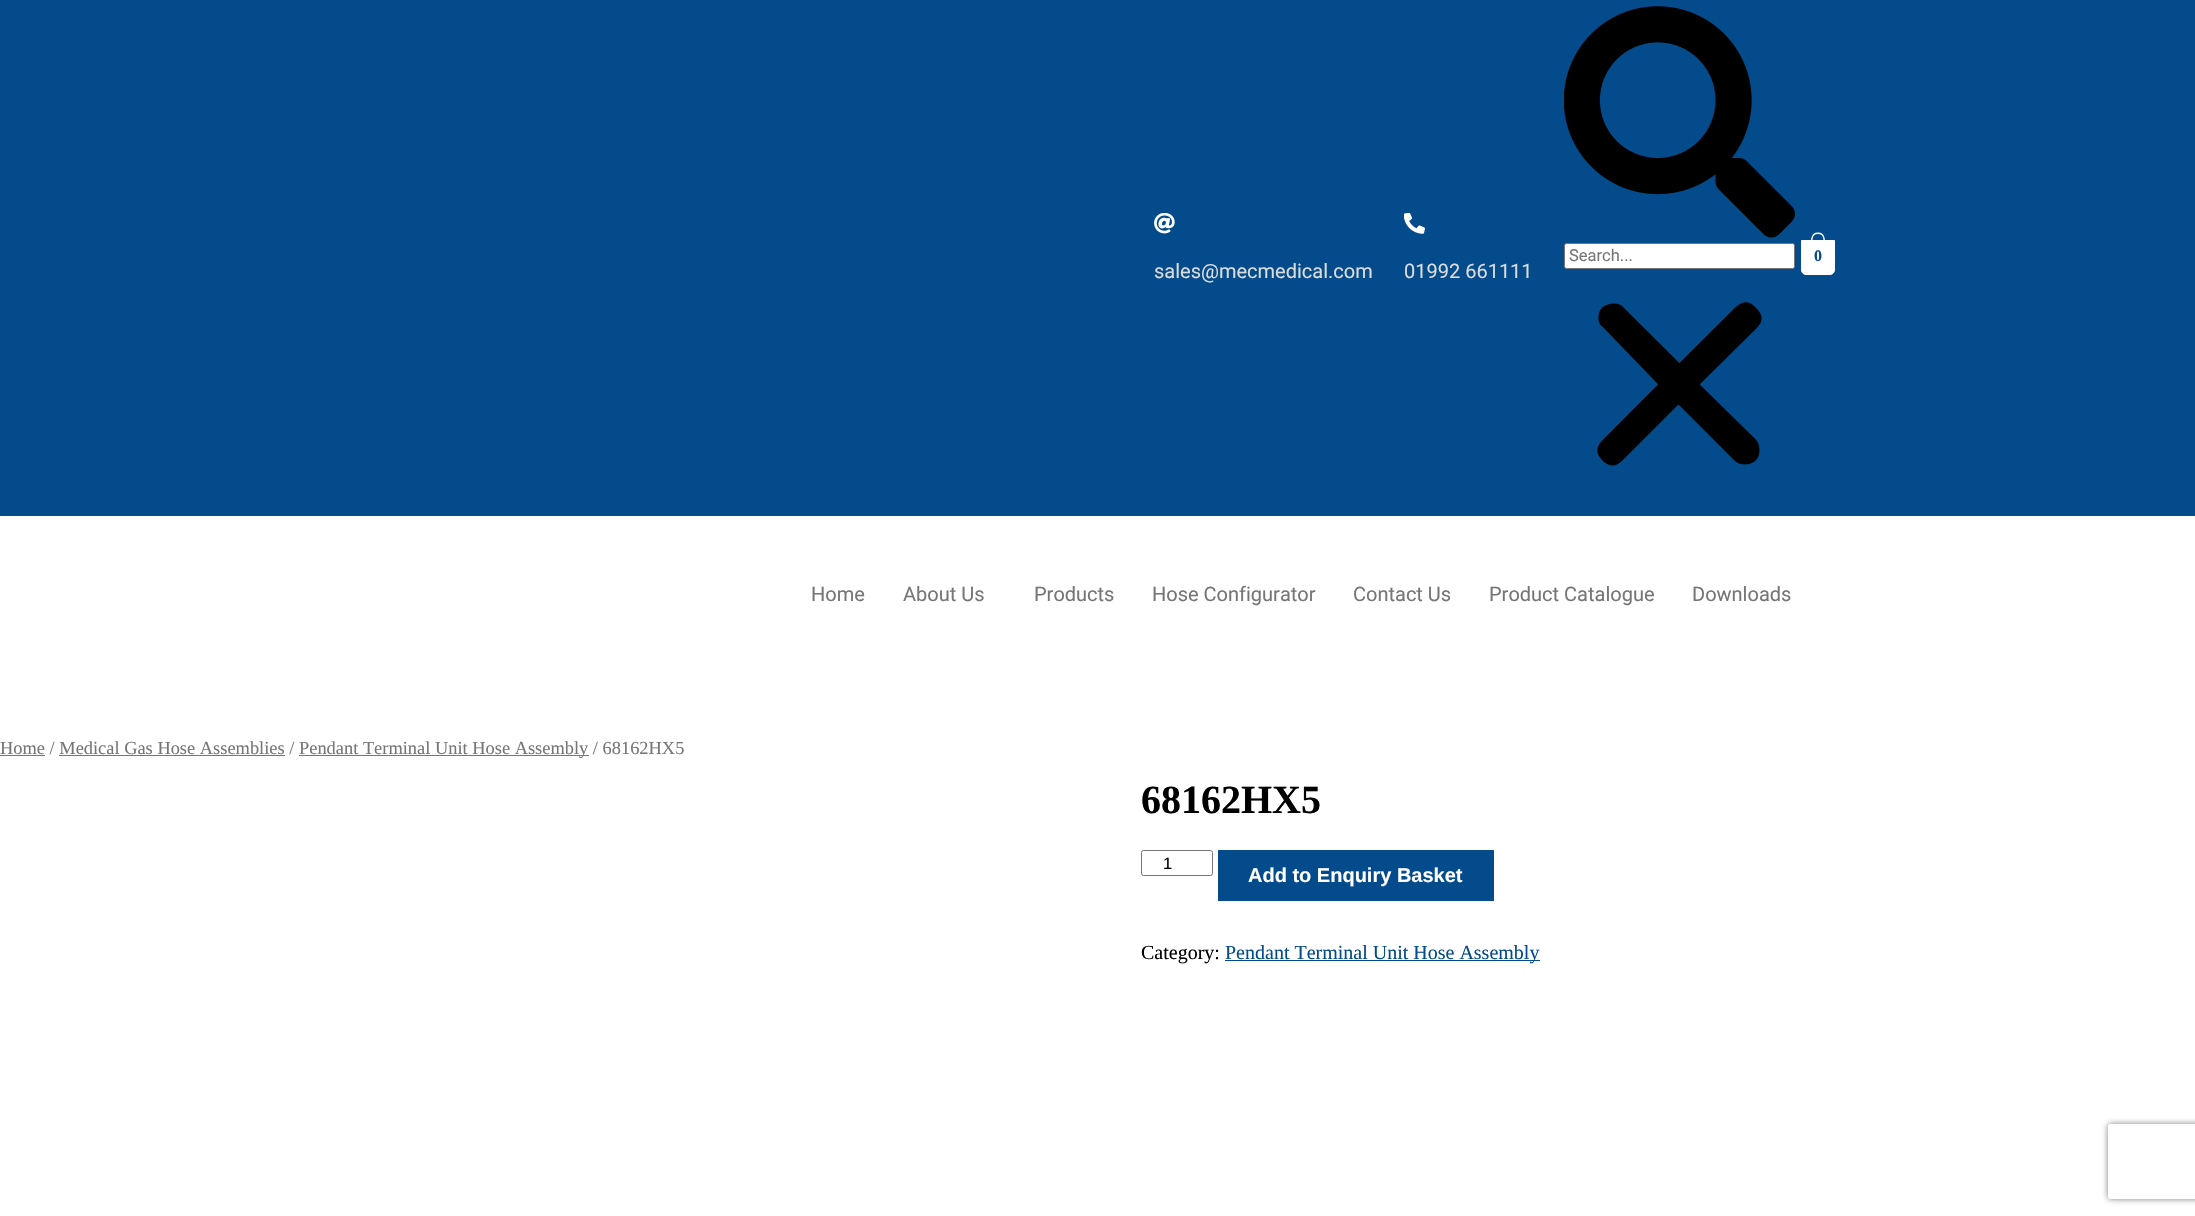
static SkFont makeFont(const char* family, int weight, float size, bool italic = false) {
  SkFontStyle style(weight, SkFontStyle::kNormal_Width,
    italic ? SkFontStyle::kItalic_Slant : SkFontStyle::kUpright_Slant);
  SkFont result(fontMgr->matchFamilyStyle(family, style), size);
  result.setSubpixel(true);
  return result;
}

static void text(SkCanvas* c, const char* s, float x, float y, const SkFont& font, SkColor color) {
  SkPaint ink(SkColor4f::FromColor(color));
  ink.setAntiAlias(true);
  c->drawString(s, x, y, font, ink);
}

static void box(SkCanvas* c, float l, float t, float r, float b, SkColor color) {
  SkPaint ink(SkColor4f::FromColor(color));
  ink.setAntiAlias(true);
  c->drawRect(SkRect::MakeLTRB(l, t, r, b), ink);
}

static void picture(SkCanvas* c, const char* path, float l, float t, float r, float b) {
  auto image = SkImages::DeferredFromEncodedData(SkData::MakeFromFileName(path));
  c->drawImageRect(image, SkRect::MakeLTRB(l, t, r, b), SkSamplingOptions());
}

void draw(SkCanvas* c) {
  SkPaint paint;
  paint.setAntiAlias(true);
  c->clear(0xffffffff);
  box(c, 0, 0, 2195, 516, 0xff044b8b);
  picture(c, "img_01.png", 1564, 6, 1795, 238);
  paint.setColor(0xffffffff);
  c->drawRoundRect(SkRect::MakeLTRB(1564.5f, 243.5f, 1794.5f, 268.5f), 2, 2, paint);
  paint.setStyle(SkPaint::kStroke_Style);
  paint.setStrokeWidth(1);
  paint.setColor(0xff767676);
  c->drawRoundRect(SkRect::MakeLTRB(1564.5f, 243.5f, 1794.5f, 268.5f), 2, 2, paint);
  SkFont face1 = makeFont("Roboto", 400, 16.5f);
  text(c, "Search...", 1569, 261, face1, 0xff767676);
  picture(c, "img_02.png", 1597, 302, 1762, 466);
  paint.setStyle(SkPaint::kFill_Style);
  paint.setColor(0xffffffff);
  c->drawPath(SkPathBuilder().moveTo(1801.5f, 240.5f).lineTo(1834.5f, 240.5f).lineTo(1834.5f, 270).cubicTo(1834.5f, 272.5f, 1832.5f, 274.5f, 1830, 274.5f).lineTo(1806, 274.5f).cubicTo(1803.5f, 274.5f, 1801.5f, 272.5f, 1801.5f, 270).close().detach(), paint);
  paint.setStyle(SkPaint::kStroke_Style);
  c->drawPath(SkPathBuilder().moveTo(1801.5f, 240.5f).lineTo(1834.5f, 240.5f).lineTo(1834.5f, 270).cubicTo(1834.5f, 272.5f, 1832.5f, 274.5f, 1830, 274.5f).lineTo(1806, 274.5f).cubicTo(1803.5f, 274.5f, 1801.5f, 272.5f, 1801.5f, 270).close().detach(), paint);
  paint.setStyle(SkPaint::kFill_Style);
  c->drawPath(SkPathBuilder(SkPathFillType::kEvenOdd).moveTo(1818, 232.5f).cubicTo(1825.5f, 232.5f, 1825, 240, 1825, 245).lineTo(1811, 245).cubicTo(1811, 240, 1810.5f, 232.5f, 1818, 232.5f).close().moveTo(1818, 234).cubicTo(1824.5f, 234, 1823.5f, 240.5f, 1823.5f, 245).lineTo(1812.5f, 245).cubicTo(1812.5f, 240.5f, 1811.5f, 234, 1818, 234).close().detach(), paint);
  SkFont face2 = makeFont("Liberation Serif", 700, 16);
  text(c, "0", 1814, 261, face2, 0xff044b8b);
  picture(c, "img_03.png", 1154, 213, 1175, 234);
  SkFont face3 = makeFont("Roboto", 400, 20);
  text(c, "sales@mecmedical.com", 1154, 278, face3, 0xffdcdcdc);
  picture(c, "img_04.png", 1404, 213, 1425, 234);
  text(c, "01992 661111", 1404, 278, face3, 0xffdcdcdc);
  text(c, "Home", 811, 601, face3, 0xff767676);
  text(c, "About Us", 903, 601, face3, 0xff767676);
  text(c, "Products", 1034, 601, face3, 0xff767676);
  text(c, "Hose Configurator", 1152, 601, face3, 0xff767676);
  text(c, "Contact Us", 1353, 601, face3, 0xff767676);
  text(c, "Product Catalogue", 1489, 601, face3, 0xff767676);
  text(c, "Downloads", 1692, 601, face3, 0xff767676);
  SkFont face4 = makeFont("Liberation Serif", 400, 18.4f);
  text(c, "Home / Medical Gas Hose Assemblies /", 0, 754, face4, 0xff767676);
  box(c, 0, 755, 45, 756, 0xff767676);
  box(c, 299, 755, 589, 756, 0xff767676);
  text(c, "Pendant Terminal Unit Hose Assembly / 68162HX5", 299, 754, face4, 0xff767676);
  box(c, 59, 755, 285, 756, 0xff767676);
  SkFont face5 = makeFont("Liberation Serif", 700, 40);
  text(c, "68162HX5", 1141, 813, face5, 0xff000000);
  paint.setStyle(SkPaint::kStroke_Style);
  paint.setColor(0xff767676);
  c->drawRoundRect(SkRect::MakeLTRB(1141.5f, 850.5f, 1212.5f, 875.5f), 2, 2, paint);
  SkFont face6 = makeFont("Liberation Sans", 400, 16.5f);
  text(c, "1", 1163, 869, face6, 0xff000000);
  box(c, 1218, 850, 1494, 901, 0xff044b8b);
  SkFont face7 = makeFont("Liberation Sans", 700, 20);
  text(c, "Add to Enquiry Basket", 1248, 882, face7, 0xffffffff);
  SkFont face8 = makeFont("Liberation Serif", 400, 20);
  text(c, "Category:", 1141, 959, face8, 0xff000000);
  box(c, 1225, 960, 1540, 961, 0xff044b8b);
  text(c, "Pendant Terminal Unit Hose Assembly", 1225, 959, face8, 0xff044b8b);
  c->save();
  c->clipPath(SkPathBuilder(SkPathFillType::kEvenOdd).moveTo(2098, 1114).lineTo(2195, 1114).lineTo(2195, 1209).lineTo(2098, 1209).close().moveTo(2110.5f, 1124).lineTo(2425.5f, 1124).cubicTo(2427, 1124, 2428, 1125, 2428, 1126.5f).lineTo(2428, 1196.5f).cubicTo(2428, 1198, 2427, 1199, 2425.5f, 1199).lineTo(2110.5f, 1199).cubicTo(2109, 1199, 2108, 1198, 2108, 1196.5f).lineTo(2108, 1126.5f).cubicTo(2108, 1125, 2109, 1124, 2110.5f, 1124).close().detach(), true);
  paint.setStyle(SkPaint::kFill_Style);
  paint.setColor(0xff808080);
  paint.setMaskFilter(SkMaskFilter::MakeBlur(kNormal_SkBlurStyle, 3));
  c->drawRoundRect(SkRect::MakeLTRB(2108, 1124, 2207, 1199), 2.5f, 2.5f, paint);
  paint.setMaskFilter(nullptr);
  c->restore();
}
